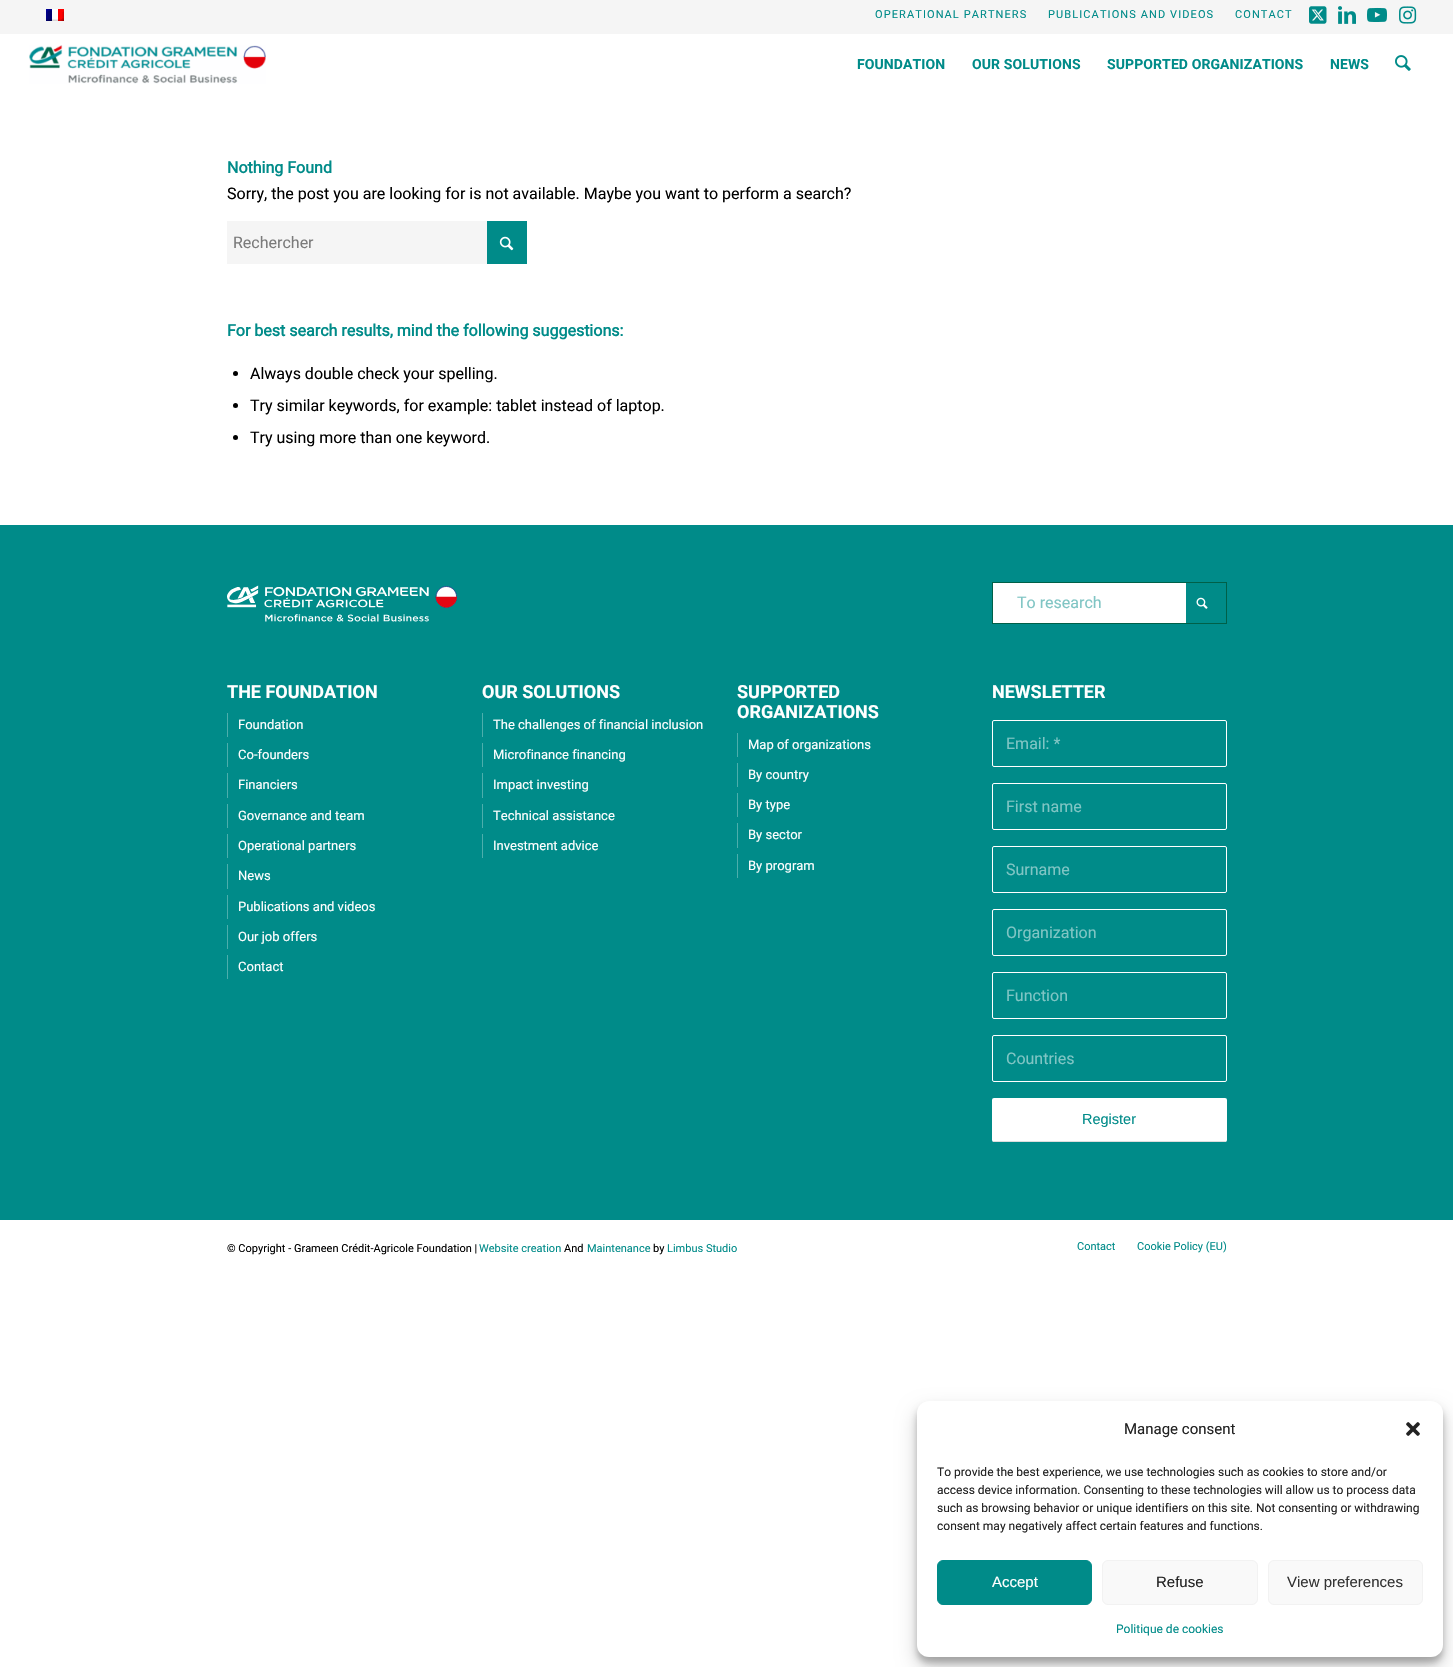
static SkFont makeFont(const char* family, int weight, float size, bool italic = false) {
  SkFontStyle style(weight, SkFontStyle::kNormal_Width,
    italic ? SkFontStyle::kItalic_Slant : SkFontStyle::kUpright_Slant);
  SkFont result(fontMgr->matchFamilyStyle(family, style), size);
  result.setSubpixel(true);
  return result;
}

static void text(SkCanvas* c, const char* s, float x, float y, const SkFont& font, SkColor color) {
  SkPaint ink(SkColor4f::FromColor(color));
  ink.setAntiAlias(true);
  c->drawString(s, x, y, font, ink);
}

static void spacedText(SkCanvas* c, const char* s, float x, float y, const SkFont& font, const SkPaint& ink, float letter, float word) {
  std::vector<SkGlyphID> glyphs(font.countText(s, strlen(s), SkTextEncoding::kUTF8));
  std::vector<float> xs(glyphs.size());
  font.textToGlyphs(s, strlen(s), SkTextEncoding::kUTF8, glyphs);
  font.getXPos(glyphs, xs, x);
  float extra = 0;
  for (size_t i = 0; i < glyphs.size(); i++) {
    xs[i] += extra;
    extra += letter + word * (glyphs[i] == font.unicharToGlyph(' '));
  }
  c->drawTextBlob(SkTextBlob::MakeFromPosHGlyphs(glyphs, xs, y, font), 0, 0, ink);
}

static void box(SkCanvas* c, float l, float t, float r, float b, SkColor color) {
  SkPaint ink(SkColor4f::FromColor(color));
  ink.setAntiAlias(true);
  c->drawRect(SkRect::MakeLTRB(l, t, r, b), ink);
}

static void roundBox(SkCanvas* c, float l, float t, float r, float b, float radius, SkColor color) {
  SkPaint ink(SkColor4f::FromColor(color));
  ink.setAntiAlias(true);
  c->drawRoundRect(SkRect::MakeLTRB(l, t, r, b), radius, radius, ink);
}

static void picture(SkCanvas* c, const char* path, float l, float t, float r, float b) {
  auto image = SkImages::DeferredFromEncodedData(SkData::MakeFromFileName(path));
  c->drawImageRect(image, SkRect::MakeLTRB(l, t, r, b), SkSamplingOptions());
}

void draw(SkCanvas* c) {
  SkPaint paint;
  paint.setAntiAlias(true);
  c->clear(0xffffffff);
  box(c, 0, 0, 1453, 34, 0xfff5f5f5);
  picture(c, "img_01.png", 46, 9, 64, 21);
  SkFont face1 = makeFont("Roboto", 400, 11);
  paint.setColor(0xff008b89);
  spacedText(c, "OPERATIONAL PARTNERS", 875, 18, face1, paint, 1.1f, 0);
  spacedText(c, "PUBLICATIONS AND VIDEOS", 1048, 18, face1, paint, 1.1f, 0);
  spacedText(c, "CONTACT", 1235, 18, face1, paint, 1.1f, 0);
  picture(c, "img_02.png", 1309, 6, 1327, 24);
  picture(c, "img_03.png", 1338, 6, 1356, 24);
  picture(c, "img_04.png", 1367, 7, 1387, 22);
  picture(c, "img_05.png", 1399, 6, 1417, 24);
  picture(c, "img_06.png", 29, 45, 266, 84);
  SkFont face2 = makeFont("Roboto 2", 700, 14);
  spacedText(c, "FOUNDATION", 857, 69, face2, paint, 0.1f, 0);
  spacedText(c, "OUR SOLUTIONS", 972, 69, face2, paint, 0.1f, 0);
  spacedText(c, "SUPPORTED ORGANIZATIONS", 1107, 69, face2, paint, 0.1f, 0);
  spacedText(c, "NEWS", 1330, 69, face2, paint, 0.1f, 0);
  picture(c, "img_07.png", 1395, 55, 1411, 71);
  SkFont face3 = makeFont("Roboto", 700, 16);
  text(c, "Nothing Found", 227, 173, face3, 0xff008b89);
  SkFont face4 = makeFont("Roboto", 400, 16);
  text(c, "Sorry, the post you are looking for is not available. Maybe you want to perform a search?", 227, 199, face4, 0xff000000);
  box(c, 227, 221, 487, 264, 0xfff5f5f5);
  text(c, "Rechercher", 233, 248, face4, 0xff7b7b7b);
  box(c, 487, 221, 527, 264, 0xff008b89);
  picture(c, "img_08.png", 499, 236, 514, 251);
  text(c, "For best search results, mind the following suggestions:", 227, 336, face3, 0xff008b89);
  paint.setColor(0xff000000);
  c->drawCircle(235.5f, 373.5f, 2.5f, paint);
  text(c, "Always double check your spelling.", 250, 379, face4, 0xff000000);
  c->drawCircle(235.5f, 405.5f, 2.5f, paint);
  text(c, "Try similar keywords, for example: tablet instead of laptop.", 250, 411, face4, 0xff000000);
  c->drawCircle(235.5f, 437.5f, 2.5f, paint);
  text(c, "Try using more than one keyword.", 250, 443, face4, 0xff000000);
  box(c, 0, 525, 1453, 1220, 0xff008b89);
  picture(c, "img_09.png", 227, 585, 457, 622);
  box(c, 992, 582, 1227, 624, 0xff006048);
  box(c, 993, 583, 1186, 623, 0xffffffff);
  text(c, "To research", 1017, 608, face4, 0xff80c5c4);
  box(c, 1186, 583, 1226, 623, 0xff008b88);
  picture(c, "img_10.png", 1196, 597, 1208, 609);
  SkFont face5 = makeFont("Roboto 2", 700, 18);
  text(c, "THE FOUNDATION", 227, 698, face5, 0xffffffff);
  box(c, 227, 713, 228, 737, 0xff4daeac);
  SkFont face6 = makeFont("Roboto", 400, 13);
  text(c, "Foundation", 238, 729, face6, 0xffffffff);
  box(c, 227, 743, 228, 767, 0xff4daeac);
  text(c, "Co-founders", 238, 759, face6, 0xffffffff);
  box(c, 227, 773, 228, 798, 0xff4daeac);
  text(c, "Financiers", 238, 789, face6, 0xffffffff);
  box(c, 227, 804, 228, 828, 0xff4daeac);
  text(c, "Governance and team", 238, 820, face6, 0xffffffff);
  box(c, 227, 834, 228, 858, 0xff4daeac);
  text(c, "Operational partners", 238, 850, face6, 0xffffffff);
  box(c, 227, 864, 228, 889, 0xff4daeac);
  text(c, "News", 238, 880, face6, 0xffffffff);
  box(c, 227, 895, 228, 919, 0xff4daeac);
  text(c, "Publications and videos", 238, 911, face6, 0xffffffff);
  box(c, 227, 925, 228, 949, 0xff4daeac);
  text(c, "Our job offers", 238, 941, face6, 0xffffffff);
  box(c, 227, 955, 228, 979, 0xff4daeac);
  text(c, "Contact", 238, 971, face6, 0xffffffff);
  text(c, "OUR SOLUTIONS", 482, 698, face5, 0xffffffff);
  box(c, 482, 713, 483, 737, 0xff4daeac);
  text(c, "The challenges of financial inclusion", 493, 729, face6, 0xffffffff);
  box(c, 482, 743, 483, 767, 0xff4daeac);
  text(c, "Microfinance financing", 493, 759, face6, 0xffffffff);
  box(c, 482, 773, 483, 798, 0xff4daeac);
  text(c, "Impact investing", 493, 789, face6, 0xffffffff);
  box(c, 482, 804, 483, 828, 0xff4daeac);
  text(c, "Technical assistance", 493, 820, face6, 0xffffffff);
  box(c, 482, 834, 483, 858, 0xff4daeac);
  text(c, "Investment advice", 493, 850, face6, 0xffffffff);
  text(c, "SUPPORTED", 737, 698, face5, 0xffffffff);
  text(c, "ORGANIZATIONS", 737, 718, face5, 0xffffffff);
  box(c, 737, 733, 738, 757, 0xff4daeac);
  text(c, "Map of organizations", 748, 749, face6, 0xffffffff);
  box(c, 737, 763, 738, 787, 0xff4daeac);
  text(c, "By country", 748, 779, face6, 0xffffffff);
  box(c, 737, 793, 738, 817, 0xff4daeac);
  text(c, "By type", 748, 809, face6, 0xffffffff);
  box(c, 737, 823, 738, 848, 0xff4daeac);
  text(c, "By sector", 748, 839, face6, 0xffffffff);
  box(c, 737, 854, 738, 878, 0xff4daeac);
  text(c, "By program", 748, 870, face6, 0xffffffff);
  text(c, "NEWSLETTER", 992, 698, face5, 0xffffffff);
  paint.setStyle(SkPaint::kStroke_Style);
  paint.setStrokeWidth(1);
  paint.setColor(0xffffffff);
  c->drawRoundRect(SkRect::MakeLTRB(992.5f, 720.5f, 1226.5f, 766.5f), 1.5f, 1.5f, paint);
  text(c, "Email: *", 1006, 749, face4, 0xff80c5c4);
  c->drawRoundRect(SkRect::MakeLTRB(992.5f, 783.5f, 1226.5f, 829.5f), 1.5f, 1.5f, paint);
  text(c, "First name", 1006, 812, face4, 0xff80c5c4);
  c->drawRoundRect(SkRect::MakeLTRB(992.5f, 846.5f, 1226.5f, 892.5f), 1.5f, 1.5f, paint);
  text(c, "Surname", 1006, 875, face4, 0xff80c5c4);
  c->drawRoundRect(SkRect::MakeLTRB(992.5f, 909.5f, 1226.5f, 955.5f), 1.5f, 1.5f, paint);
  text(c, "Organization", 1006, 938, face4, 0xff80c5c4);
  c->drawRoundRect(SkRect::MakeLTRB(992.5f, 972.5f, 1226.5f, 1018.5f), 1.5f, 1.5f, paint);
  text(c, "Function", 1006, 1001, face4, 0xff80c5c4);
  c->drawRoundRect(SkRect::MakeLTRB(992.5f, 1035.5f, 1226.5f, 1081.5f), 1.5f, 1.5f, paint);
  text(c, "Countries", 1006, 1064, face4, 0xff80c5c4);
  roundBox(c, 992, 1098, 1227, 1142, 2, 0xffffffff);
  box(c, 993, 1141, 1226, 1142, 0xffdddddd);
  SkFont face7 = makeFont("Liberation Sans", 400, 14.5f);
  text(c, "Register", 1082, 1124, face7, 0xff008b89);
  text(c, "© Copyright - Grameen Crédit-Agricole Foundation |", 227, 1252, face1, 0xff000000);
  text(c, "Website creation", 479, 1252, face1, 0xff008b89);
  text(c, "And", 564, 1252, face1, 0xff000000);
  text(c, "Maintenance", 587, 1252, face1, 0xff008b89);
  text(c, "by", 653, 1252, face1, 0xff000000);
  text(c, "Limbus Studio", 667, 1252, face1, 0xff008b89);
  text(c, "Contact", 1077, 1250, face1, 0xff008b89);
  text(c, "Cookie Policy (EU)", 1137, 1250, face1, 0xff008b89);
  paint.setStyle(SkPaint::kFill_Style);
  paint.setColor(0x3b000000);
  paint.setMaskFilter(SkMaskFilter::MakeBlur(kNormal_SkBlurStyle, 3));
  c->drawRoundRect(SkRect::MakeLTRB(917, 1407, 1443, 1663), 12, 12, paint);
  paint.setMaskFilter(nullptr);
  paint.setColor(0x30000000);
  paint.setMaskFilter(SkMaskFilter::MakeBlur(kNormal_SkBlurStyle, 10));
  c->drawRoundRect(SkRect::MakeLTRB(917, 1411, 1443, 1667), 12, 12, paint);
  paint.setMaskFilter(nullptr);
  roundBox(c, 917, 1401, 1443, 1657, 12, 0xffffffff);
  SkFont face8 = makeFont("Roboto", 400, 15);
  text(c, "Manage consent", 1124, 1434, face8, 0xff222222);
  picture(c, "img_11.png", 1406, 1422, 1420, 1436);
  SkFont face9 = makeFont("Roboto", 400, 12);
  text(c, "To provide the best experience, we use technologies such as cookies to store and/or", 937, 1476, face9, 0xff222222);
  text(c, "access device information. Consenting to these technologies will allow us to process data", 937, 1494, face9, 0xff222222);
  text(c, "such as browsing behavior or unique identifiers on this site. Not consenting or withdrawing", 937, 1512, face9, 0xff222222);
  text(c, "consent may negatively affect certain features and functions.", 937, 1530, face9, 0xff222222);
  paint.setColor(0xff008b89);
  c->drawRoundRect(SkRect::MakeLTRB(937.5f, 1560.5f, 1091.5f, 1604.5f), 5.5f, 5.5f, paint);
  paint.setStyle(SkPaint::kStroke_Style);
  c->drawRoundRect(SkRect::MakeLTRB(937.5f, 1560.5f, 1091.5f, 1604.5f), 5.5f, 5.5f, paint);
  SkFont face10 = makeFont("Liberation Sans", 400, 15);
  text(c, "Accept", 992, 1587, face10, 0xffffffff);
  paint.setStyle(SkPaint::kFill_Style);
  paint.setColor(0xfff9f9f9);
  c->drawRoundRect(SkRect::MakeLTRB(1102.5f, 1560.5f, 1257.5f, 1604.5f), 5.5f, 5.5f, paint);
  paint.setStyle(SkPaint::kStroke_Style);
  paint.setColor(0xfff2f2f2);
  c->drawRoundRect(SkRect::MakeLTRB(1102.5f, 1560.5f, 1257.5f, 1604.5f), 5.5f, 5.5f, paint);
  text(c, "Refuse", 1156, 1587, face10, 0xff222222);
  paint.setStyle(SkPaint::kFill_Style);
  paint.setColor(0xfff9f9f9);
  c->drawRoundRect(SkRect::MakeLTRB(1268.5f, 1560.5f, 1422.5f, 1604.5f), 5.5f, 5.5f, paint);
  paint.setStyle(SkPaint::kStroke_Style);
  paint.setColor(0xfff2f2f2);
  c->drawRoundRect(SkRect::MakeLTRB(1268.5f, 1560.5f, 1422.5f, 1604.5f), 5.5f, 5.5f, paint);
  text(c, "View preferences", 1287, 1587, face10, 0xff333333);
  text(c, "Politique de cookies", 1116, 1633, face9, 0xff008b89);
}
